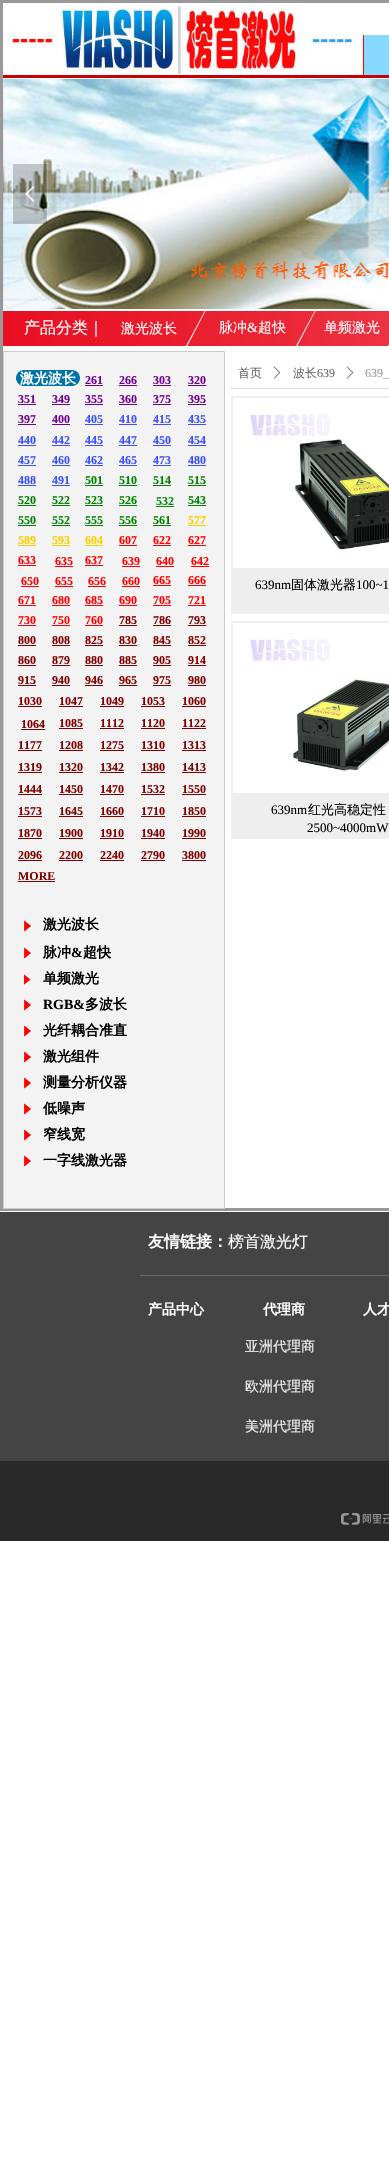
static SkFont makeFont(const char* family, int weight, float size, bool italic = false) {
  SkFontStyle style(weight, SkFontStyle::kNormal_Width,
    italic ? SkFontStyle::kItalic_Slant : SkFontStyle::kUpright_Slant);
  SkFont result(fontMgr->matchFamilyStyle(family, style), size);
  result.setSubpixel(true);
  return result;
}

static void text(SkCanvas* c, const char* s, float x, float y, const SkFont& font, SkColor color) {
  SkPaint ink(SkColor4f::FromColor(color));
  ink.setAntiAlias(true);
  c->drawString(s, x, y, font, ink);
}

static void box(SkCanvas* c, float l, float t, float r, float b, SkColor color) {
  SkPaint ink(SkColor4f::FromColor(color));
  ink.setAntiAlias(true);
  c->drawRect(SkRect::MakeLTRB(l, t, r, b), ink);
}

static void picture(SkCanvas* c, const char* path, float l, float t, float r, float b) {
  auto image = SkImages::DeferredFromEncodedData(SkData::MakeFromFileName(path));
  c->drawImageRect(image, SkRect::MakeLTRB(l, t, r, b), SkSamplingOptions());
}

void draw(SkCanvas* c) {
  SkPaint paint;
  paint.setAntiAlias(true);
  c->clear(0xffffffff);
  box(c, 0, 0, 389, 3, 0xff999999);
  box(c, 0, 0, 3, 311, 0xff999999);
  picture(c, "img_01.png", 7, 6, 356, 74);
  box(c, 363, 35, 364, 75, 0xffff0000);
  box(c, 364, 35, 389, 75, 0xff87d9ff);
  box(c, 3, 75, 389, 78, 0xffcc0000);
  picture(c, "img_02.png", 3, 79, 389, 309);
  box(c, 13, 164, 47, 224, 0x33000000);
  picture(c, "img_03.png", 25, 186, 35, 202);
  box(c, 0, 1208, 389, 1211, 0xff999999);
  box(c, 0, 311, 3, 1211, 0xff999999);
  picture(c, "img_04.png", 3, 311, 389, 346);
  SkFont face1 = makeFont("WenQuanYi Zen Hei", 500, 16);
  text(c, "产品分类｜", 24, 333, face1, 0xffffffff);
  SkFont face2 = makeFont("WenQuanYi Zen Hei", 500, 14);
  text(c, "激光波长", 121, 333, face2, 0xffffffff);
  paint.setColor(0xffffffff);
  c->drawPath(SkPathBuilder().moveTo(186, 346).lineTo(205, 310.5f).lineTo(205.5f, 311).lineTo(187, 346.5f).close().detach(), paint);
  text(c, "脉冲", 219, 332, face2, 0xffffffff);
  SkFont face3 = makeFont("Liberation Serif", 400, 14);
  text(c, "&", 247, 332, face3, 0xffffffff);
  text(c, "超快", 258, 332, face2, 0xffffffff);
  c->drawPath(SkPathBuilder().moveTo(296, 346).lineTo(315, 310.5f).lineTo(315.5f, 311).lineTo(297, 346.5f).close().detach(), paint);
  text(c, "单频激光", 324, 332, face2, 0xffffffff);
  c->drawPath(SkPathBuilder().moveTo(388, 346).lineTo(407, 310.5f).lineTo(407.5f, 311).lineTo(389, 346.5f).close().detach(), paint);
  paint.setColor(0xfff3f3f3);
  c->drawRect(SkRect::MakeLTRB(3.5f, 351.5f, 224.5f, 1208.5f), paint);
  paint.setStyle(SkPaint::kStroke_Style);
  paint.setStrokeWidth(1);
  paint.setColor(0xffcccccc);
  c->drawRect(SkRect::MakeLTRB(3.5f, 351.5f, 224.5f, 1208.5f), paint);
  picture(c, "img_05.png", 16, 370, 80, 386);
  SkFont face4 = makeFont("WenQuanYi Zen Hei", 700, 14);
  text(c, "激光波长", 20, 383, face4, 0xffffffff);
  SkFont face5 = makeFont("Liberation Serif", 700, 12);
  text(c, "261", 85, 384, face5, 0xff6f0093);
  box(c, 85, 385, 103, 386, 0xff6f0093);
  text(c, "266", 119, 384, face5, 0xff6f0093);
  box(c, 119, 385, 137, 386, 0xff6f0093);
  text(c, "303", 153, 384, face5, 0xff6f0093);
  box(c, 153, 385, 171, 386, 0xff6f0093);
  text(c, "320", 188, 384, face5, 0xff6f0093);
  box(c, 188, 385, 206, 386, 0xff6f0093);
  text(c, "351", 18, 403, face5, 0xff6f0093);
  box(c, 18, 404, 36, 405, 0xff6f0093);
  text(c, "349", 52, 403, face5, 0xff6f0093);
  box(c, 52, 404, 70, 405, 0xff6f0093);
  text(c, "355", 85, 403, face5, 0xff6f0093);
  box(c, 85, 404, 103, 405, 0xff6f0093);
  text(c, "360", 119, 403, face5, 0xff6f0093);
  box(c, 119, 404, 137, 405, 0xff6f0093);
  text(c, "375", 153, 403, face5, 0xff6f0093);
  box(c, 153, 404, 171, 405, 0xff6f0093);
  text(c, "395", 188, 403, face5, 0xff6f0093);
  box(c, 188, 404, 206, 405, 0xff6f0093);
  text(c, "397", 18, 423, face5, 0xff6f0093);
  box(c, 18, 424, 36, 425, 0xff6f0093);
  text(c, "400", 52, 423, face5, 0xff6f0093);
  box(c, 52, 424, 70, 425, 0xff6f0093);
  text(c, "405", 85, 423, face5, 0xff3950fa);
  box(c, 85, 424, 103, 425, 0xff3950fa);
  text(c, "410", 119, 423, face5, 0xff3950fa);
  box(c, 119, 424, 137, 425, 0xff3950fa);
  text(c, "415", 153, 423, face5, 0xff3950fa);
  box(c, 153, 424, 171, 425, 0xff3950fa);
  text(c, "435", 188, 423, face5, 0xff3950fa);
  box(c, 188, 424, 206, 425, 0xff3950fa);
  text(c, "440", 18, 444, face5, 0xff3950fa);
  box(c, 18, 445, 36, 446, 0xff3950fa);
  text(c, "442", 52, 444, face5, 0xff3950fa);
  box(c, 52, 445, 70, 446, 0xff3950fa);
  text(c, "445", 85, 444, face5, 0xff3950fa);
  box(c, 85, 445, 103, 446, 0xff3950fa);
  text(c, "447", 119, 444, face5, 0xff3950fa);
  box(c, 119, 445, 137, 446, 0xff3950fa);
  text(c, "450", 153, 444, face5, 0xff3950fa);
  box(c, 153, 445, 171, 446, 0xff3950fa);
  text(c, "454", 188, 444, face5, 0xff3950fa);
  box(c, 188, 445, 206, 446, 0xff3950fa);
  text(c, "457", 18, 464, face5, 0xff3950fa);
  box(c, 18, 465, 36, 466, 0xff3950fa);
  text(c, "460", 52, 464, face5, 0xff3950fa);
  box(c, 52, 465, 70, 466, 0xff3950fa);
  text(c, "462", 85, 464, face5, 0xff3950fa);
  box(c, 85, 465, 103, 466, 0xff3950fa);
  text(c, "465", 119, 464, face5, 0xff3950fa);
  box(c, 119, 465, 137, 466, 0xff3950fa);
  text(c, "473", 153, 464, face5, 0xff3950fa);
  box(c, 153, 465, 171, 466, 0xff3950fa);
  text(c, "480", 188, 464, face5, 0xff3950fa);
  box(c, 188, 465, 206, 466, 0xff3950fa);
  text(c, "488", 18, 484, face5, 0xff3950fa);
  box(c, 18, 485, 36, 486, 0xff3950fa);
  text(c, "491", 52, 484, face5, 0xff3950fa);
  box(c, 52, 485, 70, 486, 0xff3950fa);
  text(c, "501", 85, 484, face5, 0xff008000);
  box(c, 85, 485, 103, 486, 0xff008000);
  text(c, "510", 119, 484, face5, 0xff008000);
  box(c, 119, 485, 137, 486, 0xff008000);
  text(c, "514", 153, 484, face5, 0xff008000);
  box(c, 153, 485, 171, 486, 0xff008000);
  text(c, "515", 188, 484, face5, 0xff008000);
  box(c, 188, 485, 206, 486, 0xff008000);
  text(c, "520", 18, 504, face5, 0xff008000);
  box(c, 18, 505, 36, 506, 0xff008000);
  text(c, "522", 52, 504, face5, 0xff008000);
  box(c, 52, 505, 70, 506, 0xff008000);
  text(c, "523", 85, 504, face5, 0xff008000);
  box(c, 85, 505, 103, 506, 0xff008000);
  text(c, "526", 119, 504, face5, 0xff008000);
  box(c, 119, 505, 137, 506, 0xff008000);
  text(c, "532", 156, 505, face5, 0xff048a04);
  box(c, 156, 506, 174, 507, 0xff048a04);
  text(c, "543", 188, 504, face5, 0xff008000);
  box(c, 188, 505, 206, 506, 0xff008000);
  text(c, "550", 18, 524, face5, 0xff008000);
  box(c, 18, 525, 36, 526, 0xff008000);
  text(c, "552", 52, 524, face5, 0xff008000);
  box(c, 52, 525, 70, 526, 0xff008000);
  text(c, "555", 85, 524, face5, 0xff008000);
  box(c, 85, 525, 103, 526, 0xff008000);
  text(c, "556", 119, 524, face5, 0xff008000);
  box(c, 119, 525, 137, 526, 0xff008000);
  text(c, "561", 153, 524, face5, 0xff008000);
  box(c, 153, 525, 171, 526, 0xff008000);
  text(c, "577", 188, 524, face5, 0xfff6d102);
  box(c, 188, 525, 206, 526, 0xfff6d102);
  text(c, "589", 18, 544, face5, 0xfff6d102);
  box(c, 18, 545, 36, 546, 0xfff6d102);
  text(c, "593", 52, 544, face5, 0xfff6d102);
  box(c, 52, 545, 70, 546, 0xfff6d102);
  text(c, "604", 85, 544, face5, 0xfff6d102);
  box(c, 85, 545, 103, 546, 0xfff6d102);
  text(c, "607", 119, 544, face5, 0xffff0000);
  box(c, 119, 545, 137, 546, 0xffff0000);
  text(c, "622", 153, 544, face5, 0xffff0000);
  box(c, 153, 545, 171, 546, 0xffff0000);
  text(c, "627", 188, 544, face5, 0xffff0000);
  box(c, 188, 545, 206, 546, 0xffff0000);
  text(c, "633", 18, 564, face5, 0xffff0000);
  box(c, 18, 565, 36, 566, 0xffff0000);
  text(c, "635", 55, 565, face5, 0xffff0000);
  box(c, 55, 566, 73, 567, 0xffff0000);
  text(c, "637", 85, 564, face5, 0xffff0000);
  box(c, 85, 565, 103, 566, 0xffff0000);
  text(c, "639", 122, 565, face5, 0xffff0000);
  box(c, 122, 566, 140, 567, 0xffff0000);
  text(c, "640", 156, 565, face5, 0xffff0000);
  box(c, 156, 566, 174, 567, 0xffff0000);
  text(c, "642", 191, 565, face5, 0xffff0000);
  box(c, 191, 566, 209, 567, 0xffff0000);
  text(c, "650", 21, 585, face5, 0xffff0000);
  box(c, 21, 586, 39, 587, 0xffff0000);
  text(c, "655", 55, 585, face5, 0xffff0000);
  box(c, 55, 586, 73, 587, 0xffff0000);
  text(c, "656", 88, 585, face5, 0xffff0000);
  box(c, 88, 586, 106, 587, 0xffff0000);
  text(c, "660", 122, 585, face5, 0xffff0000);
  box(c, 122, 586, 140, 587, 0xffff0000);
  text(c, "665", 153, 584, face5, 0xffff0000);
  box(c, 153, 585, 171, 586, 0xffff0000);
  text(c, "666", 188, 584, face5, 0xffff0000);
  box(c, 188, 585, 206, 586, 0xffff0000);
  text(c, "671", 18, 604, face5, 0xffff0000);
  box(c, 18, 605, 36, 606, 0xffff0000);
  text(c, "680", 52, 604, face5, 0xffff0000);
  box(c, 52, 605, 70, 606, 0xffff0000);
  text(c, "685", 85, 604, face5, 0xffff0000);
  box(c, 85, 605, 103, 606, 0xffff0000);
  text(c, "690", 119, 604, face5, 0xffff0000);
  box(c, 119, 605, 137, 606, 0xffff0000);
  text(c, "705", 153, 604, face5, 0xffff0000);
  box(c, 153, 605, 171, 606, 0xffff0000);
  text(c, "721", 188, 604, face5, 0xffff0000);
  box(c, 188, 605, 206, 606, 0xffff0000);
  text(c, "730", 18, 624, face5, 0xffff0000);
  box(c, 18, 625, 36, 626, 0xffff0000);
  text(c, "750", 52, 624, face5, 0xffff0000);
  box(c, 52, 625, 70, 626, 0xffff0000);
  text(c, "760", 85, 624, face5, 0xffff0000);
  box(c, 85, 625, 103, 626, 0xffff0000);
  text(c, "785", 119, 624, face5, 0xff800000);
  box(c, 119, 625, 137, 626, 0xff800000);
  text(c, "786", 153, 624, face5, 0xff800000);
  box(c, 153, 625, 171, 626, 0xff800000);
  text(c, "793", 188, 624, face5, 0xff800000);
  box(c, 188, 625, 206, 626, 0xff800000);
  text(c, "800", 18, 644, face5, 0xff800000);
  box(c, 18, 645, 36, 646, 0xff800000);
  text(c, "808", 52, 644, face5, 0xff800000);
  box(c, 52, 645, 70, 646, 0xff800000);
  text(c, "825", 85, 644, face5, 0xff800000);
  box(c, 85, 645, 103, 646, 0xff800000);
  text(c, "830", 119, 644, face5, 0xff800000);
  box(c, 119, 645, 137, 646, 0xff800000);
  text(c, "845", 153, 644, face5, 0xff800000);
  box(c, 153, 645, 171, 646, 0xff800000);
  text(c, "852", 188, 644, face5, 0xff800000);
  box(c, 188, 645, 206, 646, 0xff800000);
  text(c, "860", 18, 664, face5, 0xff800000);
  box(c, 18, 665, 36, 666, 0xff800000);
  text(c, "879", 52, 664, face5, 0xff800000);
  box(c, 52, 665, 70, 666, 0xff800000);
  text(c, "880", 85, 664, face5, 0xff800000);
  box(c, 85, 665, 103, 666, 0xff800000);
  text(c, "885", 119, 664, face5, 0xff800000);
  box(c, 119, 665, 137, 666, 0xff800000);
  text(c, "905", 153, 664, face5, 0xff800000);
  box(c, 153, 665, 171, 666, 0xff800000);
  text(c, "914", 188, 664, face5, 0xff800000);
  box(c, 188, 665, 206, 666, 0xff800000);
  text(c, "915", 18, 684, face5, 0xff800000);
  box(c, 18, 685, 36, 686, 0xff800000);
  text(c, "940", 52, 684, face5, 0xff800000);
  box(c, 52, 685, 70, 686, 0xff800000);
  text(c, "946", 85, 684, face5, 0xff800000);
  box(c, 85, 685, 103, 686, 0xff800000);
  text(c, "965", 119, 684, face5, 0xff800000);
  box(c, 119, 685, 137, 686, 0xff800000);
  text(c, "975", 153, 684, face5, 0xff800000);
  box(c, 153, 685, 171, 686, 0xff800000);
  text(c, "980", 188, 684, face5, 0xff800000);
  box(c, 188, 685, 206, 686, 0xff800000);
  text(c, "1030", 18, 705, face5, 0xff800000);
  box(c, 18, 706, 42, 707, 0xff800000);
  text(c, "1047", 59, 705, face5, 0xff800000);
  box(c, 59, 706, 83, 707, 0xff800000);
  text(c, "1049", 100, 705, face5, 0xff800000);
  box(c, 100, 706, 124, 707, 0xff800000);
  text(c, "1053", 141, 705, face5, 0xff800000);
  box(c, 141, 706, 165, 707, 0xff800000);
  text(c, "1060", 182, 705, face5, 0xff800000);
  box(c, 182, 706, 206, 707, 0xff800000);
  text(c, "1064", 21, 728, face5, 0xff800000);
  box(c, 21, 729, 45, 730, 0xff800000);
  text(c, "1085", 59, 727, face5, 0xff800000);
  box(c, 59, 728, 83, 729, 0xff800000);
  text(c, "1112", 100, 727, face5, 0xff800000);
  box(c, 100, 728, 124, 729, 0xff800000);
  text(c, "1120", 141, 727, face5, 0xff800000);
  box(c, 141, 728, 165, 729, 0xff800000);
  text(c, "1122", 182, 727, face5, 0xff800000);
  box(c, 182, 728, 206, 729, 0xff800000);
  text(c, "1177", 18, 749, face5, 0xff800000);
  box(c, 18, 750, 42, 751, 0xff800000);
  text(c, "1208", 59, 749, face5, 0xff800000);
  box(c, 59, 750, 83, 751, 0xff800000);
  text(c, "1275", 100, 749, face5, 0xff800000);
  box(c, 100, 750, 124, 751, 0xff800000);
  text(c, "1310", 141, 749, face5, 0xff800000);
  box(c, 141, 750, 165, 751, 0xff800000);
  text(c, "1313", 182, 749, face5, 0xff800000);
  box(c, 182, 750, 206, 751, 0xff800000);
  text(c, "1319", 18, 771, face5, 0xff800000);
  box(c, 18, 772, 42, 773, 0xff800000);
  text(c, "1320", 59, 771, face5, 0xff800000);
  box(c, 59, 772, 83, 773, 0xff800000);
  text(c, "1342", 100, 771, face5, 0xff800000);
  box(c, 100, 772, 124, 773, 0xff800000);
  text(c, "1380", 141, 771, face5, 0xff800000);
  box(c, 141, 772, 165, 773, 0xff800000);
  text(c, "1413", 182, 771, face5, 0xff800000);
  box(c, 182, 772, 206, 773, 0xff800000);
  text(c, "1444", 18, 793, face5, 0xff800000);
  box(c, 18, 794, 42, 795, 0xff800000);
  text(c, "1450", 59, 793, face5, 0xff800000);
  box(c, 59, 794, 83, 795, 0xff800000);
  text(c, "1470", 100, 793, face5, 0xff800000);
  box(c, 100, 794, 124, 795, 0xff800000);
  text(c, "1532", 141, 793, face5, 0xff800000);
  box(c, 141, 794, 165, 795, 0xff800000);
  text(c, "1550", 182, 793, face5, 0xff800000);
  box(c, 182, 794, 206, 795, 0xff800000);
  text(c, "1573", 18, 815, face5, 0xff800000);
  box(c, 18, 816, 42, 817, 0xff800000);
  text(c, "1645", 59, 815, face5, 0xff800000);
  box(c, 59, 816, 83, 817, 0xff800000);
  text(c, "1660", 100, 815, face5, 0xff800000);
  box(c, 100, 816, 124, 817, 0xff800000);
  text(c, "1710", 141, 815, face5, 0xff800000);
  box(c, 141, 816, 165, 817, 0xff800000);
  text(c, "1850", 182, 815, face5, 0xff800000);
  box(c, 182, 816, 206, 817, 0xff800000);
  text(c, "1870", 18, 837, face5, 0xff800000);
  box(c, 18, 838, 42, 839, 0xff800000);
  text(c, "1900", 59, 837, face5, 0xff800000);
  box(c, 59, 838, 83, 839, 0xff800000);
  text(c, "1910", 100, 837, face5, 0xff800000);
  box(c, 100, 838, 124, 839, 0xff800000);
  text(c, "1940", 141, 837, face5, 0xff800000);
  box(c, 141, 838, 165, 839, 0xff800000);
  text(c, "1990", 182, 837, face5, 0xff800000);
  box(c, 182, 838, 206, 839, 0xff800000);
  text(c, "2096", 18, 859, face5, 0xff800000);
  box(c, 18, 860, 42, 861, 0xff800000);
  text(c, "2200", 59, 859, face5, 0xff800000);
  box(c, 59, 860, 83, 861, 0xff800000);
  text(c, "2240", 100, 859, face5, 0xff800000);
  box(c, 100, 860, 124, 861, 0xff800000);
  text(c, "2790", 141, 859, face5, 0xff800000);
  box(c, 141, 860, 165, 861, 0xff800000);
  text(c, "3800", 182, 859, face5, 0xff800000);
  box(c, 182, 860, 206, 861, 0xff800000);
  text(c, "MORE", 18, 880, face5, 0xff800000);
  box(c, 18, 881, 55, 882, 0xff800000);
  picture(c, "img_06.png", 24, 920, 31, 932);
  text(c, "激光波长", 43, 929, face4, 0xff000000);
  picture(c, "img_06.png", 24, 947, 31, 959);
  text(c, "脉冲", 43, 957, face4, 0xff000000);
  SkFont face6 = makeFont("Liberation Serif", 700, 14);
  text(c, "&", 71, 957, face6, 0xff000000);
  text(c, "超快", 83, 957, face4, 0xff000000);
  picture(c, "img_07.png", 23, 974, 31, 985);
  text(c, "单频激光", 43, 983, face4, 0xff000000);
  picture(c, "img_06.png", 24, 999, 31, 1011);
  text(c, "RGB&", 43, 1009, face6, 0xff000000);
  text(c, "多波长", 85, 1009, face4, 0xff000000);
  picture(c, "img_06.png", 24, 1025, 31, 1037);
  text(c, "光纤耦合准直", 43, 1035, face4, 0xff000000);
  picture(c, "img_06.png", 24, 1051, 31, 1063);
  text(c, "激光组件", 43, 1061, face4, 0xff000000);
  picture(c, "img_06.png", 24, 1077, 31, 1089);
  text(c, "测量分析仪器", 43, 1087, face4, 0xff000000);
  picture(c, "img_06.png", 24, 1103, 31, 1115);
  text(c, "低噪声", 43, 1113, face4, 0xff000000);
  picture(c, "img_06.png", 24, 1129, 31, 1141);
  text(c, "窄线宽", 43, 1139, face4, 0xff000000);
  picture(c, "img_06.png", 24, 1155, 31, 1167);
  text(c, "一字线激光器", 43, 1165, face4, 0xff000000);
  SkFont face7 = makeFont("WenQuanYi Zen Hei", 500, 12);
  text(c, "首页", 238, 377, face7, 0xff666666);
  picture(c, "img_08.png", 273, 366, 281, 379);
  text(c, "波长", 293, 377, face7, 0xff666666);
  SkFont face8 = makeFont("Liberation Serif", 400, 12);
  text(c, "639", 317, 377, face8, 0xff666666);
  picture(c, "img_08.png", 346, 366, 354, 379);
  text(c, "639_", 365, 377, face8, 0xff999999);
  box(c, 230, 388, 389, 389, 0xffdddddd);
  box(c, 231, 396, 389, 614, 0xffeeeeee);
  picture(c, "img_09.png", 233, 398, 389, 568);
  SkFont face9 = makeFont("Liberation Serif", 400, 13);
  text(c, "639nm", 255, 589, face9, 0xff000000);
  SkFont face10 = makeFont("WenQuanYi Zen Hei", 500, 13);
  text(c, "固体激光器", 291, 589, face10, 0xff000000);
  text(c, "100~1", 356, 589, face9, 0xff000000);
  box(c, 231, 621, 389, 839, 0xffeeeeee);
  picture(c, "img_10.png", 233, 623, 389, 793);
  text(c, "639nm", 271, 814, face9, 0xff000000);
  text(c, "红光高稳定性", 308, 814, face10, 0xff000000);
  text(c, "2500~4000mW", 307, 832, face9, 0xff000000);
  box(c, 0, 1212, 389, 1461, 0xff444444);
  SkFont face11 = makeFont("WenQuanYi Zen Hei", 700, 16);
  text(c, "友情链接：", 148, 1247, face11, 0xffffffff);
  text(c, "榜首激光灯", 228, 1247, face1, 0xffffffff);
  box(c, 140, 1275, 389, 1276, 0xff666666);
  text(c, "产品中心", 148, 1314, face4, 0xffffffff);
  text(c, "代理商", 263, 1314, face4, 0xffffffff);
  text(c, "人才", 363, 1314, face4, 0xffffffff);
  text(c, "亚洲代理商", 245, 1351, face2, 0xfff3f3f3);
  text(c, "欧洲代理商", 245, 1391, face2, 0xfff3f3f3);
  text(c, "美洲代理商", 245, 1431, face2, 0xfff3f3f3);
  box(c, 0, 1461, 389, 1541, 0xff292929);
  picture(c, "img_11.png", 341, 1513, 389, 1525);
}
